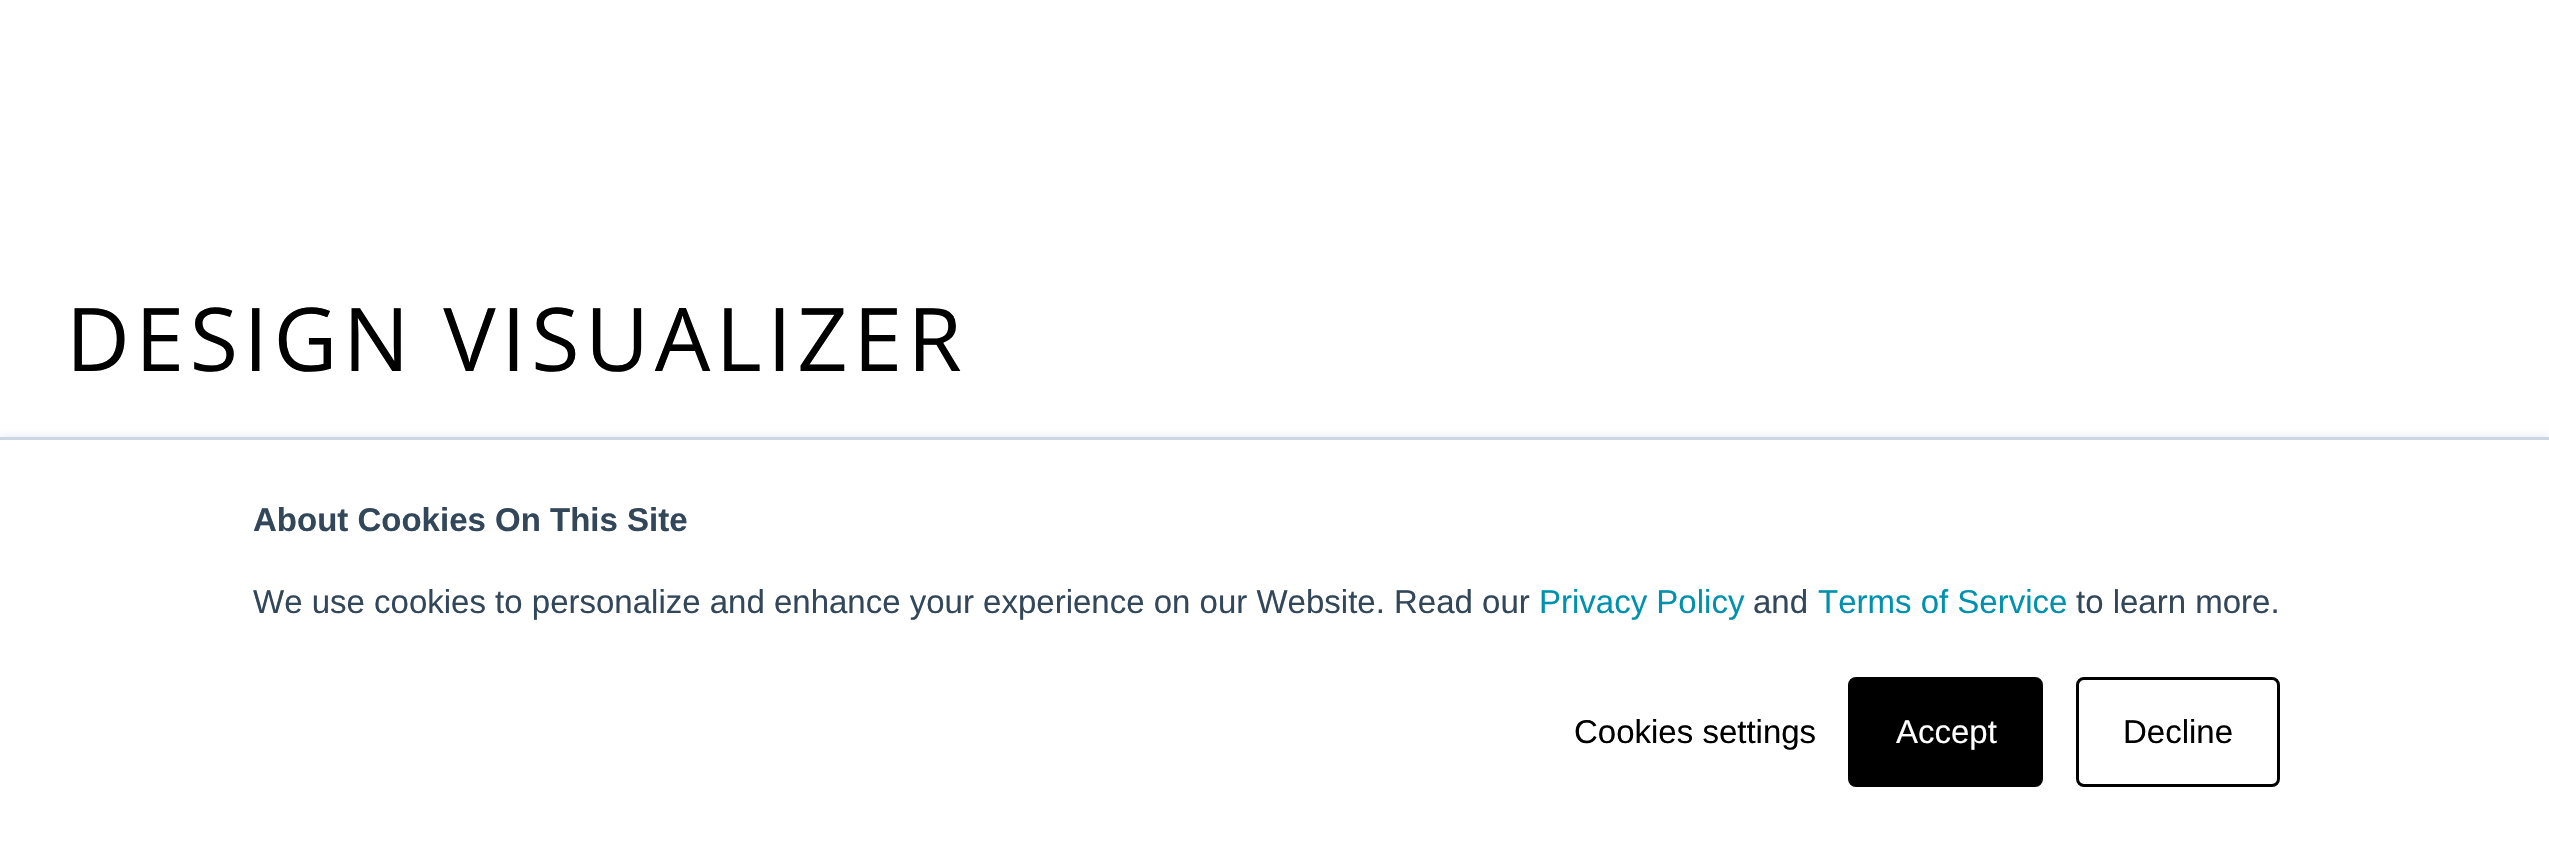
static SkFont makeFont(const char* family, int weight, float size, bool italic = false) {
  SkFontStyle style(weight, SkFontStyle::kNormal_Width,
    italic ? SkFontStyle::kItalic_Slant : SkFontStyle::kUpright_Slant);
  SkFont result(fontMgr->matchFamilyStyle(family, style), size);
  result.setSubpixel(true);
  return result;
}

static void text(SkCanvas* c, const char* s, float x, float y, const SkFont& font, SkColor color) {
  SkPaint ink(SkColor4f::FromColor(color));
  ink.setAntiAlias(true);
  c->drawString(s, x, y, font, ink);
}

static void spacedText(SkCanvas* c, const char* s, float x, float y, const SkFont& font, const SkPaint& ink, float letter, float word) {
  std::vector<SkGlyphID> glyphs(font.countText(s, strlen(s), SkTextEncoding::kUTF8));
  std::vector<float> xs(glyphs.size());
  font.textToGlyphs(s, strlen(s), SkTextEncoding::kUTF8, glyphs);
  font.getXPos(glyphs, xs, x);
  float extra = 0;
  for (size_t i = 0; i < glyphs.size(); i++) {
    xs[i] += extra;
    extra += letter + word * (glyphs[i] == font.unicharToGlyph(' '));
  }
  c->drawTextBlob(SkTextBlob::MakeFromPosHGlyphs(glyphs, xs, y, font), 0, 0, ink);
}

static void box(SkCanvas* c, float l, float t, float r, float b, SkColor color) {
  SkPaint ink(SkColor4f::FromColor(color));
  ink.setAntiAlias(true);
  c->drawRect(SkRect::MakeLTRB(l, t, r, b), ink);
}

void draw(SkCanvas* c) {
  SkPaint paint;
  paint.setAntiAlias(true);
  c->clear(0xffffffff);
  SkFont face1 = makeFont("Open Sans", 400, 88);
  paint.setColor(0xff000000);
  spacedText(c, "DESIGN VISUALIZER", 66, 371, face1, paint, 5.5f, 0);
  paint.setColor(0xffeaf0f6);
  paint.setMaskFilter(SkMaskFilter::MakeBlur(kNormal_SkBlurStyle, 4));
  c->drawRect(SkRect::MakeLTRB(0, 435, 2549, 855), paint);
  paint.setMaskFilter(nullptr);
  box(c, 0, 440, 2549, 856, 0xffffffff);
  box(c, 0, 437, 2549, 440, 0xffcbd6e2);
  SkFont face2 = makeFont("Liberation Sans", 700, 33);
  text(c, "About Cookies On This Site", 253, 531, face2, 0xff33475b);
  SkFont face3 = makeFont("Liberation Sans", 400, 33);
  text(c, "We use cookies to personalize and enhance your experience on our Website. Read our", 253, 613, face3, 0xff33475b);
  text(c, "Privacy Policy", 1539, 613, face3, 0xff0091ae);
  text(c, "and", 1753, 613, face3, 0xff33475b);
  text(c, "Terms of Service", 1818, 613, face3, 0xff0091ae);
  text(c, "to learn more.", 2076, 613, face3, 0xff33475b);
  text(c, "Cookies settings", 1574, 743, face3, 0xff000000);
  paint.setColor(0xff000000);
  c->drawRoundRect(SkRect::MakeLTRB(1849.5f, 678.5f, 2041.5f, 785.5f), 6.5f, 6.5f, paint);
  paint.setStyle(SkPaint::kStroke_Style);
  paint.setStrokeWidth(3);
  c->drawRoundRect(SkRect::MakeLTRB(1849.5f, 678.5f, 2041.5f, 785.5f), 6.5f, 6.5f, paint);
  text(c, "Accept", 1896, 743, face3, 0xffffffff);
  c->drawRoundRect(SkRect::MakeLTRB(2077.5f, 678.5f, 2278.5f, 785.5f), 6.5f, 6.5f, paint);
  text(c, "Decline", 2123, 743, face3, 0xff000000);
}
